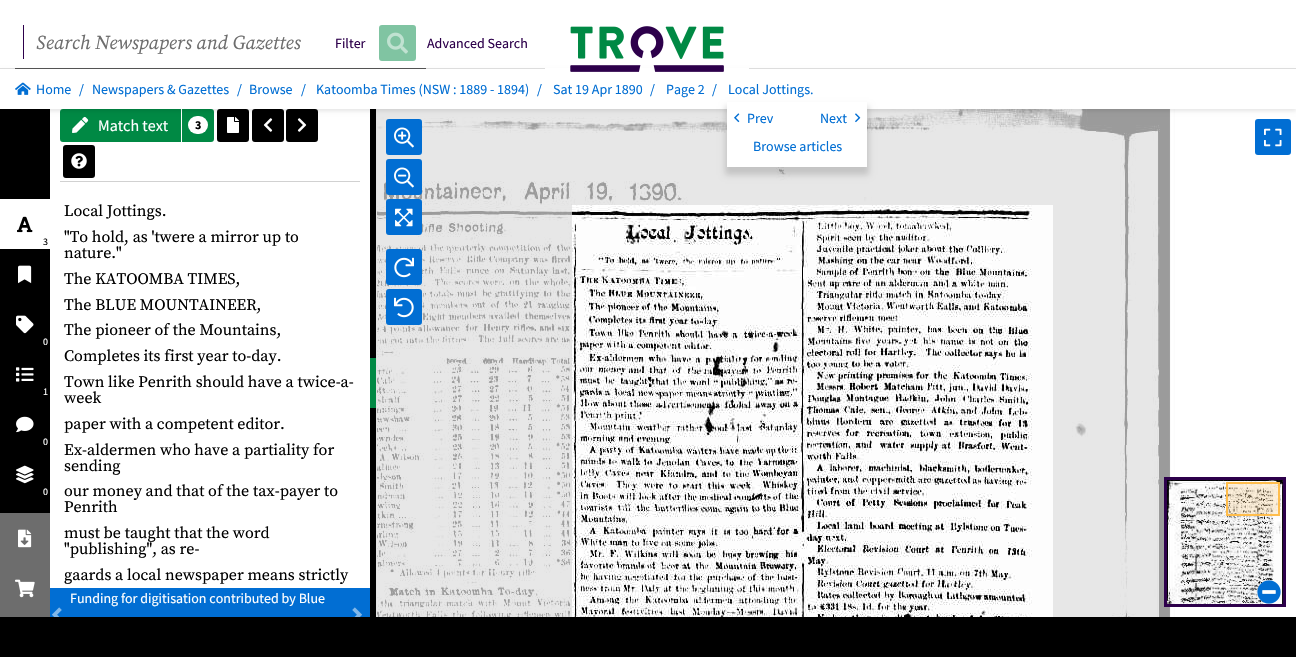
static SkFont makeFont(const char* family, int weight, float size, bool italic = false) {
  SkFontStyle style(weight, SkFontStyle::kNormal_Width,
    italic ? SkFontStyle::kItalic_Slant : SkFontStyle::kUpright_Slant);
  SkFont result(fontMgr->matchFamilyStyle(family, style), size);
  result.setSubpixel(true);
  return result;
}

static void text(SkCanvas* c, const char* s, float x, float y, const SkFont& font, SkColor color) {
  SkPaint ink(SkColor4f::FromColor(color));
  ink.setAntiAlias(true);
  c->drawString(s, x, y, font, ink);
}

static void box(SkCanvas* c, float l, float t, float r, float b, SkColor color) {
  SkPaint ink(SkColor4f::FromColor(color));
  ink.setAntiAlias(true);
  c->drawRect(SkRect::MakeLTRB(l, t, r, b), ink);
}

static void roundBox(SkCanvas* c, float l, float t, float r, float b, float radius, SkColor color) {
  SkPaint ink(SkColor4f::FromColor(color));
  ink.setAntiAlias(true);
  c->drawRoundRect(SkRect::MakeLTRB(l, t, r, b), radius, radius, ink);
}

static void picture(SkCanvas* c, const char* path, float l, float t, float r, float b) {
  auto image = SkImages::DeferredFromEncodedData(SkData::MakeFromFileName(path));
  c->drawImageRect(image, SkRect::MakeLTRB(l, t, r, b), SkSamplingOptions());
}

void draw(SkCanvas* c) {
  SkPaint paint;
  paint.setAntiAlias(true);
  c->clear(0xffffffff);
  box(c, 0, 109, 50, 513, 0xff000000);
  paint.setColor(0xff008944);
  c->drawPath(SkPathBuilder().moveTo(63, 110).lineTo(180, 110).lineTo(180, 141).lineTo(63, 141).cubicTo(62, 141, 61, 140, 61, 139).lineTo(61, 112).cubicTo(61, 111, 62, 110, 63, 110).close().detach(), paint);
  paint.setStyle(SkPaint::kStroke_Style);
  paint.setStrokeWidth(2);
  c->drawPath(SkPathBuilder().moveTo(63, 110).lineTo(180, 110).lineTo(180, 141).lineTo(63, 141).cubicTo(62, 141, 61, 140, 61, 139).lineTo(61, 112).cubicTo(61, 111, 62, 110, 63, 110).close().detach(), paint);
  picture(c, "img_14.png", 72, 116, 89, 133);
  paint.setStyle(SkPaint::kFill_Style);
  c->drawPath(SkPathBuilder().moveTo(183, 110).lineTo(211, 110).cubicTo(212, 110, 213, 111, 213, 112).lineTo(213, 139).cubicTo(213, 140, 212, 141, 211, 141).lineTo(183, 141).close().detach(), paint);
  paint.setStyle(SkPaint::kStroke_Style);
  c->drawPath(SkPathBuilder().moveTo(183, 110).lineTo(211, 110).cubicTo(212, 110, 213, 111, 213, 112).lineTo(213, 139).cubicTo(213, 140, 212, 141, 211, 141).lineTo(183, 141).close().detach(), paint);
  roundBox(c, 188, 116, 208, 134, 9, 0xffffffff);
  paint.setStyle(SkPaint::kFill_Style);
  paint.setColor(0xff000000);
  c->drawRoundRect(SkRect::MakeLTRB(218, 110, 248, 141), 2, 2, paint);
  paint.setStyle(SkPaint::kStroke_Style);
  c->drawRoundRect(SkRect::MakeLTRB(218, 110, 248, 141), 2, 2, paint);
  picture(c, "img_15.png", 227, 117, 239, 133);
  paint.setStyle(SkPaint::kFill_Style);
  c->drawRoundRect(SkRect::MakeLTRB(253, 110, 283, 141), 2, 2, paint);
  paint.setStyle(SkPaint::kStroke_Style);
  c->drawRoundRect(SkRect::MakeLTRB(253, 110, 283, 141), 2, 2, paint);
  paint.setStyle(SkPaint::kFill_Style);
  c->drawRoundRect(SkRect::MakeLTRB(287, 110, 317, 141), 2, 2, paint);
  paint.setStyle(SkPaint::kStroke_Style);
  c->drawRoundRect(SkRect::MakeLTRB(287, 110, 317, 141), 2, 2, paint);
  box(c, 370, 109, 376, 617, 0xff000000);
  box(c, 376, 109, 377, 617, 0xffe3e3e3);
  picture(c, "img_21.png", 377, 109, 576, 357);
  picture(c, "img_22.png", 576, 109, 832, 357);
  picture(c, "img_23.png", 832, 109, 1088, 357);
  picture(c, "img_24.png", 1088, 109, 1296, 357);
  box(c, 377, 109, 1170, 205, 0xb3dddddd);
  paint.setStyle(SkPaint::kFill_Style);
  paint.setColor(0x1a000000);
  paint.setMaskFilter(SkMaskFilter::MakeBlur(kNormal_SkBlurStyle, 2));
  c->drawRect(SkRect::MakeLTRB(0, 71, 1296, 111), paint);
  paint.setMaskFilter(nullptr);
  box(c, 0, 68, 1296, 69, 0xffdddddd);
  box(c, 23, 25, 24, 59, 0xff2d004b);
  SkFont face1 = makeFont("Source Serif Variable", 400, 19.6f, true);
  text(c, "Search Newspapers and Gazettes", 36, 49, face1, 0xff6d6d6d);
  SkFont face2 = makeFont("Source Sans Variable", 400, 14);
  text(c, "Filter", 335, 48, face2, 0xff2d004b);
  paint.setColor(0xff80c4a2);
  c->drawRoundRect(SkRect::MakeLTRB(380, 26, 415, 60), 2, 2, paint);
  paint.setStyle(SkPaint::kStroke_Style);
  c->drawRoundRect(SkRect::MakeLTRB(380, 26, 415, 60), 2, 2, paint);
  picture(c, "img_01.png", 387, 32, 408, 54);
  text(c, "Advanced Search", 427, 48, face2, 0xff2d004b);
  box(c, 15, 68, 426, 69, 0xff535353);
  box(c, 545, 68, 749, 69, 0xffffffff);
  box(c, 0, 69, 1296, 109, 0xffffffff);
  picture(c, "img_02.png", 570, 26, 724, 72);
  picture(c, "img_03.png", 15, 82, 31, 95);
  text(c, "Home", 36, 94, face2, 0xff016ed3);
  text(c, "/", 79, 94, face2, 0xff016ed3);
  text(c, "Newspapers & Gazettes", 92, 94, face2, 0xff016ed3);
  text(c, "/", 237, 94, face2, 0xff016ed3);
  text(c, "Browse", 249, 94, face2, 0xff016ed3);
  text(c, "/", 301, 94, face2, 0xff016ed3);
  text(c, "Katoomba Times (NSW : 1889 - 1894)", 316, 94, face2, 0xff016ed3);
  text(c, "/", 537, 94, face2, 0xff016ed3);
  text(c, "Sat 19 Apr 1890", 553, 94, face2, 0xff016ed3);
  text(c, "/", 650, 94, face2, 0xff016ed3);
  text(c, "Page 2", 666, 94, face2, 0xff016ed3);
  text(c, "/", 712, 94, face2, 0xff016ed3);
  text(c, "Local Jottings.", 728, 94, face2, 0xff016ed3);
  paint.setStyle(SkPaint::kFill_Style);
  paint.setColor(0x26000000);
  paint.setMaskFilter(SkMaskFilter::MakeBlur(kNormal_SkBlurStyle, 3));
  c->drawRect(SkRect::MakeLTRB(725, 106, 869, 175), paint);
  paint.setMaskFilter(nullptr);
  box(c, 727, 102, 867, 167, 0xffffffff);
  picture(c, "img_04.png", 734, 113, 740, 123);
  text(c, "Prev", 747, 123, face2, 0xff016ed3);
  text(c, "Next", 820, 123, face2, 0xff016ed3);
  picture(c, "img_05.png", 855, 113, 861, 123);
  text(c, "Browse articles", 753, 151, face2, 0xff016ed3);
  box(c, 0, 199, 50, 249, 0xffffffff);
  picture(c, "img_06.png", 17, 216, 33, 233);
  SkFont face3 = makeFont("Source Sans Variable", 400, 10);
  text(c, "3", 43, 245, face3, 0xff000000);
  picture(c, "img_07.png", 18, 265, 32, 284);
  picture(c, "img_08.png", 16, 315, 34, 334);
  text(c, "0", 43, 345, face3, 0xffffffff);
  picture(c, "img_09.png", 16, 367, 34, 382);
  text(c, "1", 43, 395, face3, 0xffffffff);
  picture(c, "img_10.png", 16, 416, 34, 433);
  text(c, "0", 43, 445, face3, 0xffffffff);
  picture(c, "img_11.png", 16, 465, 34, 484);
  text(c, "0", 43, 495, face3, 0xffffffff);
  box(c, 0, 513, 50, 617, 0xff6d6d6d);
  picture(c, "img_12.png", 18, 529, 32, 548);
  picture(c, "img_13.png", 15, 579, 35, 598);
  SkFont face4 = makeFont("Source Sans Variable", 400, 16);
  text(c, "Match text", 98, 131, face4, 0xffffffff);
  SkFont face5 = makeFont("Source Sans Variable", 700, 12);
  text(c, "3", 195, 129, face5, 0xff000000);
  picture(c, "img_16.png", 263, 118, 273, 132);
  picture(c, "img_17.png", 297, 118, 307, 132);
  paint.setColor(0xff000000);
  c->drawRoundRect(SkRect::MakeLTRB(64, 146, 94, 177), 2, 2, paint);
  paint.setStyle(SkPaint::kStroke_Style);
  c->drawRoundRect(SkRect::MakeLTRB(64, 146, 94, 177), 2, 2, paint);
  picture(c, "img_18.png", 71, 153, 87, 169);
  box(c, 60, 181, 360, 182, 0xffd1d1d1);
  SkFont face6 = makeFont("Source Serif Variable", 400, 16);
  text(c, "Local Jottings.", 64, 216, face6, 0xff000000);
  text(c, "\"To hold, as 'twere a mirror up to", 64, 242, face6, 0xff000000);
  text(c, "nature.\"", 64, 258, face6, 0xff000000);
  text(c, "The KATOOMBA TIMES,", 64, 284, face6, 0xff000000);
  text(c, "The BLUE MOUNTAINEER,", 64, 310, face6, 0xff000000);
  text(c, "The pioneer of the Mountains,", 64, 335, face6, 0xff000000);
  text(c, "Completes its first year to-day.", 64, 361, face6, 0xff000000);
  text(c, "Town like Penrith should have a twice-a-", 64, 387, face6, 0xff000000);
  text(c, "week", 64, 403, face6, 0xff000000);
  text(c, "paper with a competent editor.", 64, 429, face6, 0xff000000);
  text(c, "Ex-aldermen who have a partiality for", 64, 455, face6, 0xff000000);
  text(c, "sending", 64, 471, face6, 0xff000000);
  text(c, "our money and that of the tax-payer to", 64, 496, face6, 0xff000000);
  text(c, "Penrith", 64, 512, face6, 0xff000000);
  text(c, "must be taught that the word", 64, 538, face6, 0xff000000);
  text(c, "\"publishing\", as re-", 64, 554, face6, 0xff000000);
  text(c, "gaards a local newspaper means strictly", 64, 580, face6, 0xff000000);
  box(c, 50, 588, 370, 617, 0xff016ed3);
  text(c, "Funding for digitisation contributed by Blue", 70, 603, face2, 0xffffffff);
  picture(c, "img_19.png", 52, 607, 62, 617);
  picture(c, "img_20.png", 352, 607, 362, 617);
  box(c, 370, 358, 376, 408, 0xff008944);
  picture(c, "img_25.png", 377, 357, 576, 613);
  picture(c, "img_29.png", 377, 613, 576, 617);
  box(c, 377, 205, 572, 617, 0xb3dddddd);
  picture(c, "img_26.png", 576, 357, 832, 613);
  picture(c, "img_27.png", 832, 357, 1088, 613);
  picture(c, "img_28.png", 1088, 357, 1296, 613);
  picture(c, "img_31.png", 832, 613, 1088, 617);
  picture(c, "img_32.png", 1088, 613, 1296, 617);
  box(c, 1053, 205, 1170, 617, 0xb3dddddd);
  picture(c, "img_30.png", 576, 613, 832, 617);
  paint.setStyle(SkPaint::kFill_Style);
  paint.setColor(0xff016ed3);
  c->drawRoundRect(SkRect::MakeLTRB(387, 120, 421, 154), 2, 2, paint);
  paint.setStyle(SkPaint::kStroke_Style);
  c->drawRoundRect(SkRect::MakeLTRB(387, 120, 421, 154), 2, 2, paint);
  picture(c, "img_33.png", 394, 127, 414, 148);
  paint.setStyle(SkPaint::kFill_Style);
  c->drawRoundRect(SkRect::MakeLTRB(1256, 120, 1290, 154), 2, 2, paint);
  paint.setStyle(SkPaint::kStroke_Style);
  c->drawRoundRect(SkRect::MakeLTRB(1256, 120, 1290, 154), 2, 2, paint);
  picture(c, "img_34.png", 1264, 128, 1282, 147);
  paint.setStyle(SkPaint::kFill_Style);
  c->drawRoundRect(SkRect::MakeLTRB(387, 160, 421, 194), 2, 2, paint);
  paint.setStyle(SkPaint::kStroke_Style);
  c->drawRoundRect(SkRect::MakeLTRB(387, 160, 421, 194), 2, 2, paint);
  picture(c, "img_35.png", 394, 167, 414, 188);
  paint.setStyle(SkPaint::kFill_Style);
  c->drawRoundRect(SkRect::MakeLTRB(387, 200, 421, 234), 2, 2, paint);
  paint.setStyle(SkPaint::kStroke_Style);
  c->drawRoundRect(SkRect::MakeLTRB(387, 200, 421, 234), 2, 2, paint);
  picture(c, "img_36.png", 395, 208, 413, 227);
  paint.setStyle(SkPaint::kFill_Style);
  c->drawRoundRect(SkRect::MakeLTRB(387, 250, 421, 284), 2, 2, paint);
  paint.setStyle(SkPaint::kStroke_Style);
  c->drawRoundRect(SkRect::MakeLTRB(387, 250, 421, 284), 2, 2, paint);
  picture(c, "img_37.png", 394, 257, 414, 278);
  paint.setStyle(SkPaint::kFill_Style);
  c->drawRoundRect(SkRect::MakeLTRB(387, 290, 421, 324), 2, 2, paint);
  paint.setStyle(SkPaint::kStroke_Style);
  c->drawRoundRect(SkRect::MakeLTRB(387, 290, 421, 324), 2, 2, paint);
  picture(c, "img_38.png", 394, 297, 414, 318);
  paint.setStrokeWidth(3);
  paint.setColor(0xff2d004b);
  c->drawRect(SkRect::MakeLTRB(1165.5f, 478.5f, 1284.5f, 605.5f), paint);
  picture(c, "img_39.png", 1167, 480, 1283, 604);
  paint.setStyle(SkPaint::kFill_Style);
  paint.setColor(0x1affbd4c);
  c->drawRect(SkRect::MakeLTRB(1227, 483, 1279, 515), paint);
  paint.setStyle(SkPaint::kStroke_Style);
  paint.setStrokeWidth(2);
  paint.setColor(0xffffbd4c);
  c->drawRect(SkRect::MakeLTRB(1227, 483, 1279, 515), paint);
  box(c, 1228, 484, 1278, 514, 0x1affbd4c);
  paint.setStyle(SkPaint::kFill_Style);
  paint.setColor(0xffffffff);
  c->drawPath(SkPathBuilder().moveTo(1261, 584).cubicTo(1271.5f, 573, 1288, 589.5f, 1277, 600).cubicTo(1266.5f, 611, 1250, 594.5f, 1261, 584).close().detach(), paint);
  picture(c, "img_40.png", 1257, 580, 1281, 604);
  box(c, 0, 617, 1296, 657, 0xff000000);
}
